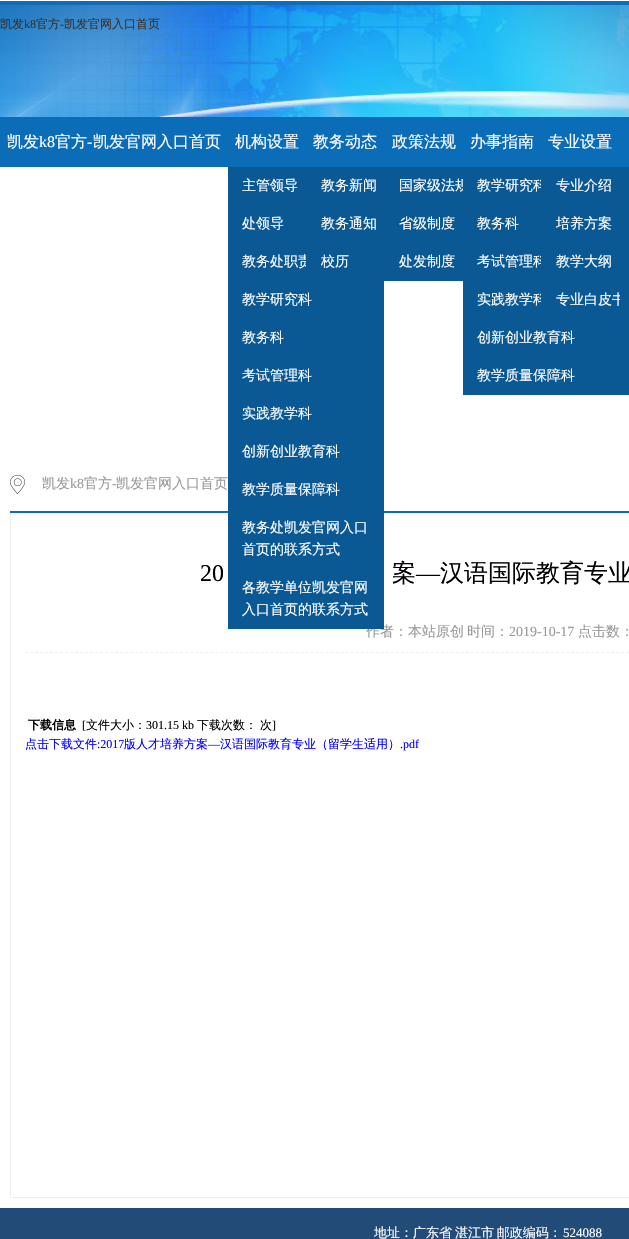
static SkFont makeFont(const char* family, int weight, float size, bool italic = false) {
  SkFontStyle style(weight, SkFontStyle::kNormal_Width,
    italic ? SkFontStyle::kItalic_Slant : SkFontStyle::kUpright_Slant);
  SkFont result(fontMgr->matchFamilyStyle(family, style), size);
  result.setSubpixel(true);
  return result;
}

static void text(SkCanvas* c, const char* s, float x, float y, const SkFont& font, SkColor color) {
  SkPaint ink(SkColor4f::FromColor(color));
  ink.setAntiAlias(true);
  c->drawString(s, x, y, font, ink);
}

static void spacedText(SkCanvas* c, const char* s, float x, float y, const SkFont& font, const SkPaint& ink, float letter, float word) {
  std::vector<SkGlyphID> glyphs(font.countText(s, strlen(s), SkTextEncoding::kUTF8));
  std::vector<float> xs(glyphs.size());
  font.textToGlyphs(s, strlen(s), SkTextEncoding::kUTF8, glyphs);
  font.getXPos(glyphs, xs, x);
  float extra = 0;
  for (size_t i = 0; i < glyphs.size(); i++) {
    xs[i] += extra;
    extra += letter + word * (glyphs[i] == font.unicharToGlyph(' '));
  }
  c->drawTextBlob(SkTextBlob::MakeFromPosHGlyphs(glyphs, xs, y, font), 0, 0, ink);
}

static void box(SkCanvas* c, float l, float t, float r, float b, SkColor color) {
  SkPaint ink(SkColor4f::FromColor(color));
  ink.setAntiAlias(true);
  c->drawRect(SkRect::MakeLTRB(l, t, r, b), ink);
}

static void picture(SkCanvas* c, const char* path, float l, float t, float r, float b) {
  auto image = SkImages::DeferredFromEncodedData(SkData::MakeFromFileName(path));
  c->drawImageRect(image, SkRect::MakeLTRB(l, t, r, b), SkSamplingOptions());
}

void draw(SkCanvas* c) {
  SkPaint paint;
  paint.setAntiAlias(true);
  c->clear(0xffffffff);
  box(c, 0, 1, 629, 5, 0xff0d6db9);
  picture(c, "img_01.png", 0, 5, 629, 117);
  SkFont face1 = makeFont("WenQuanYi Zen Hei", 500, 12);
  text(c, "凯发", 0, 28, face1, 0xff333333);
  SkFont face2 = makeFont("Liberation Serif", 400, 12);
  text(c, "k8", 24, 28, face2, 0xff333333);
  text(c, "官方", 36, 28, face1, 0xff333333);
  text(c, "-", 60, 28, face2, 0xff333333);
  text(c, "凯发官网入口首页", 64, 28, face1, 0xff333333);
  box(c, 0, 117, 629, 167, 0xff0b6cb8);
  SkFont face3 = makeFont("WenQuanYi Zen Hei", 500, 16);
  text(c, "凯发", 7, 147, face3, 0xffffffff);
  SkFont face4 = makeFont("Liberation Serif", 400, 16);
  text(c, "k8", 39, 147, face4, 0xffffffff);
  text(c, "官方", 55, 147, face3, 0xffffffff);
  text(c, "-", 87, 147, face4, 0xffffffff);
  text(c, "凯发官网入口首页", 93, 147, face3, 0xffffffff);
  text(c, "机构设置", 235, 147, face3, 0xffffffff);
  box(c, 10, 511, 629, 513, 0xff0b6cb8);
  SkFont face5 = makeFont("WenQuanYi Zen Hei", 500, 14);
  text(c, "作者：本站原创", 366, 636, face5, 0xff999999);
  box(c, 228, 167, 384, 629, 0xff0a5894);
  text(c, "主管领导", 242, 190, face5, 0xffffffff);
  text(c, "处领导", 242, 228, face5, 0xffffffff);
  text(c, "教务处职责", 242, 266, face5, 0xffffffff);
  text(c, "教学研究科", 242, 304, face5, 0xffffffff);
  text(c, "教务科", 242, 342, face5, 0xffffffff);
  text(c, "考试管理科", 242, 380, face5, 0xffffffff);
  text(c, "实践教学科", 242, 418, face5, 0xffffffff);
  text(c, "创新创业教育科", 242, 456, face5, 0xffffffff);
  text(c, "教学质量保障科", 242, 494, face5, 0xffffffff);
  text(c, "教务处凯发官网入口", 242, 532, face5, 0xffffffff);
  text(c, "首页的联系方式", 242, 554, face5, 0xffffffff);
  text(c, "各教学单位凯发官网", 242, 592, face5, 0xffffffff);
  text(c, "入口首页的联系方式", 242, 614, face5, 0xffffffff);
  text(c, "教务动态", 313, 147, face3, 0xffffffff);
  box(c, 306, 255, 312, 269, 0xff0a5894);
  text(c, "教务新闻", 321, 190, face5, 0xffffffff);
  text(c, "教务通知", 321, 228, face5, 0xffffffff);
  text(c, "校历", 321, 266, face5, 0xffffffff);
  text(c, "政策法规", 392, 147, face3, 0xffffffff);
  box(c, 384, 167, 463, 281, 0xff0a5894);
  text(c, "国家级法规", 399, 190, face5, 0xffffffff);
  text(c, "省级制度", 399, 228, face5, 0xffffffff);
  text(c, "处发制度", 399, 266, face5, 0xffffffff);
  text(c, "办事指南", 470, 147, face3, 0xffffffff);
  box(c, 463, 167, 620, 395, 0xff0a5894);
  text(c, "教学研究科", 477, 190, face5, 0xffffffff);
  text(c, "教务科", 477, 228, face5, 0xffffffff);
  text(c, "考试管理科", 477, 266, face5, 0xffffffff);
  text(c, "实践教学科", 477, 304, face5, 0xffffffff);
  text(c, "创新创业教育科", 477, 342, face5, 0xffffffff);
  text(c, "教学质量保障科", 477, 380, face5, 0xffffffff);
  text(c, "专业设置", 548, 147, face3, 0xffffffff);
  box(c, 541, 178, 547, 306, 0xff0a5894);
  text(c, "专业介绍", 556, 190, face5, 0xffffffff);
  text(c, "培养方案", 556, 228, face5, 0xffffffff);
  text(c, "教学大纲", 556, 266, face5, 0xffffffff);
  text(c, "专业白皮书", 556, 304, face5, 0xffffffff);
  box(c, 620, 167, 629, 395, 0xff0a5894);
  picture(c, "img_02.png", 10, 475, 25, 494);
  text(c, "凯发", 42, 488, face5, 0xff999999);
  SkFont face6 = makeFont("Liberation Serif", 400, 14);
  text(c, "k8", 70, 488, face6, 0xff999999);
  text(c, "官方", 84, 488, face5, 0xff999999);
  text(c, "-", 112, 488, face6, 0xff999999);
  text(c, "凯发官网入口首页", 116, 488, face5, 0xff999999);
  box(c, 10, 1197, 629, 1198, 0xffeeeeee);
  box(c, 10, 513, 11, 1198, 0xffeeeeee);
  paint.setStyle(SkPaint::kStroke_Style);
  paint.setStrokeWidth(1);
  paint.setColor(0xffeeeeee);
  paint.setPathEffect(SkDashPathEffect::Make({{3, 2.01f}}, 0));
  c->drawPath(SkPathBuilder().moveTo(25, 652.5f).lineTo(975, 652.5f).detach(), paint);
  paint.setPathEffect(nullptr);
  SkFont face7 = makeFont("Liberation Serif", 400, 24);
  text(c, "20", 200, 581, face7, 0xff000000);
  SkFont face8 = makeFont("WenQuanYi Zen Hei", 500, 24);
  text(c, "案", 392, 581, face8, 0xff000000);
  text(c, "—", 416, 581, face7, 0xff000000);
  text(c, "汉语国际教育专业", 440, 581, face8, 0xff000000);
  text(c, "时间：", 467, 636, face5, 0xff999999);
  text(c, "2019-10-17", 509, 636, face6, 0xff999999);
  text(c, "点击数：", 578, 636, face5, 0xff999999);
  SkFont face9 = makeFont("WenQuanYi Zen Hei", 700, 12);
  text(c, "下载信息", 28, 729, face9, 0xff000000);
  text(c, "[", 82, 729, face2, 0xff000000);
  text(c, "文件大小：", 86, 729, face1, 0xff000000);
  text(c, "301.15 kb", 146, 729, face2, 0xff000000);
  text(c, "下载次数：", 197, 729, face1, 0xff000000);
  text(c, "次", 260, 729, face1, 0xff000000);
  text(c, "]", 272, 729, face2, 0xff000000);
  text(c, "点击下载文件", 25, 748, face1, 0xff0000ff);
  text(c, ":2017", 97, 748, face2, 0xff0000ff);
  text(c, "版人才培养方案", 124, 748, face1, 0xff0000ff);
  text(c, "—", 208, 748, face2, 0xff0000ff);
  text(c, "汉语国际教育专业（留学生适用）", 220, 748, face1, 0xff0000ff);
  text(c, ".pdf", 400, 748, face2, 0xff0000ff);
  box(c, 0, 1208, 629, 1239, 0xff224b77);
  SkFont face10 = makeFont("WenQuanYi Zen Hei", 500, 13);
  paint.setStyle(SkPaint::kFill_Style);
  paint.setColor(0xffffffff);
  spacedText(c, "地址：广东省 湛江市 邮政编码：", 374, 1237, face10, paint, 0, -1);
  SkFont face11 = makeFont("Liberation Serif", 400, 13);
  text(c, "524088", 563, 1237, face11, 0xffffffff);
}
